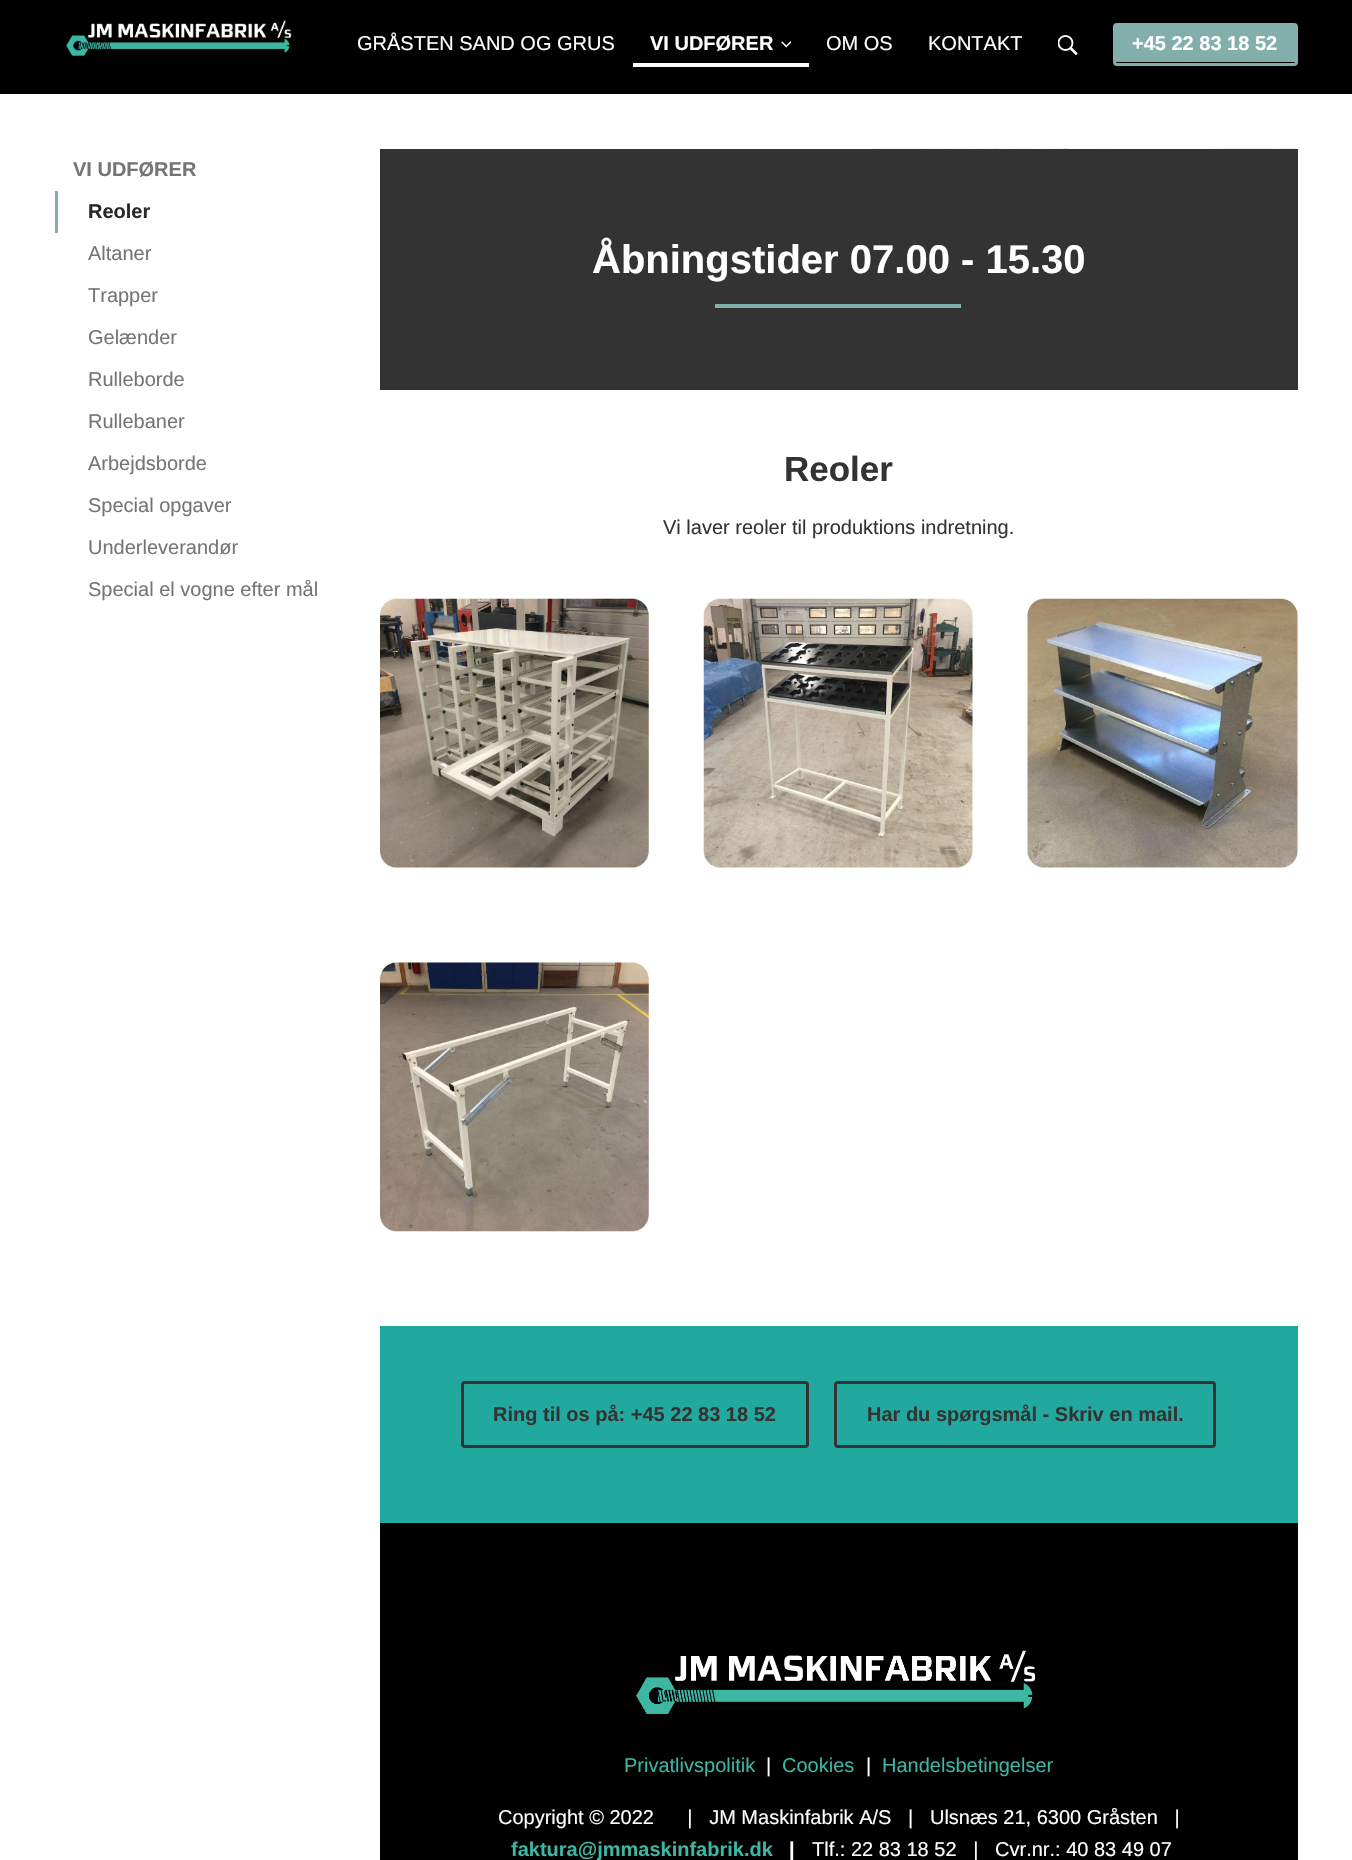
static SkFont makeFont(const char* family, int weight, float size, bool italic = false) {
  SkFontStyle style(weight, SkFontStyle::kNormal_Width,
    italic ? SkFontStyle::kItalic_Slant : SkFontStyle::kUpright_Slant);
  SkFont result(fontMgr->matchFamilyStyle(family, style), size);
  result.setSubpixel(true);
  return result;
}

static void text(SkCanvas* c, const char* s, float x, float y, const SkFont& font, SkColor color) {
  SkPaint ink(SkColor4f::FromColor(color));
  ink.setAntiAlias(true);
  c->drawString(s, x, y, font, ink);
}

static void box(SkCanvas* c, float l, float t, float r, float b, SkColor color) {
  SkPaint ink(SkColor4f::FromColor(color));
  ink.setAntiAlias(true);
  c->drawRect(SkRect::MakeLTRB(l, t, r, b), ink);
}

static void picture(SkCanvas* c, const char* path, float l, float t, float r, float b) {
  auto image = SkImages::DeferredFromEncodedData(SkData::MakeFromFileName(path));
  c->drawImageRect(image, SkRect::MakeLTRB(l, t, r, b), SkSamplingOptions());
}

void draw(SkCanvas* c) {
  SkPaint paint;
  paint.setAntiAlias(true);
  c->clear(0xffffffff);
  box(c, 0, 0, 1352, 94, 0xff000000);
  picture(c, "img_01.png", 66, 20, 292, 56);
  SkFont face1 = makeFont("Liberation Sans", 400, 20);
  text(c, "GRÅSTEN SAND OG GRUS", 357, 50, face1, 0xffffffff);
  box(c, 633, 63, 809, 67, 0xffffffff);
  SkFont face2 = makeFont("Liberation Sans", 700, 20);
  text(c, "VI UDFØRER", 650, 50, face2, 0xffffffff);
  picture(c, "img_02.png", 781, 41, 791, 48);
  text(c, "OM OS", 826, 50, face1, 0xffffffff);
  text(c, "KONTAKT", 928, 50, face1, 0xffffffff);
  picture(c, "img_03.png", 1058, 35, 1078, 55);
  paint.setColor(0xff82aeac);
  c->drawPath(SkPathBuilder().moveTo(1116, 25).lineTo(1294, 25).cubicTo(1294, 25, 1295, 26, 1295, 26).lineTo(1295, 62).lineTo(1115, 62).lineTo(1115, 26).close().detach(), paint);
  paint.setStyle(SkPaint::kStroke_Style);
  paint.setStrokeWidth(3);
  c->drawRoundRect(SkRect::MakeLTRB(1114.5f, 24.5f, 1296.5f, 64.5f), 2.5f, 2.5f, paint);
  text(c, "+45 22 83 18 52", 1132, 50, face2, 0xffffffff);
  text(c, "VI UDFØRER", 73, 176, face2, 0xff757575);
  box(c, 55, 191, 58, 233, 0xff82aeac);
  text(c, "Reoler", 88, 218, face2, 0xff282828);
  text(c, "Altaner", 88, 260, face1, 0xff757575);
  text(c, "Trapper", 88, 302, face1, 0xff757575);
  text(c, "Gelænder", 88, 344, face1, 0xff757575);
  text(c, "Rulleborde", 88, 386, face1, 0xff757575);
  text(c, "Rullebaner", 88, 428, face1, 0xff757575);
  text(c, "Arbejdsborde", 88, 470, face1, 0xff757575);
  text(c, "Special opgaver", 88, 512, face1, 0xff757575);
  text(c, "Underleverandør", 88, 554, face1, 0xff757575);
  text(c, "Special el vogne efter mål", 88, 596, face1, 0xff757575);
  picture(c, "img_04.png", 380, 148, 1298, 149);
  box(c, 380, 149, 1298, 390, 0xff333333);
  SkFont face3 = makeFont("Liberation Sans", 700, 40);
  text(c, "Åbningstider 07.00 - 15.30", 592, 273, face3, 0xffffffff);
  box(c, 715, 304, 961, 308, 0xff82aeac);
  SkFont face4 = makeFont("Liberation Sans", 700, 35);
  text(c, "Reoler", 784, 481, face4, 0xff333333);
  text(c, "Vi laver reoler til produktions indretning.", 663, 534, face1, 0xff333333);
  picture(c, "img_05.png", 380, 598, 649, 868);
  picture(c, "img_06.png", 703, 598, 973, 868);
  picture(c, "img_07.png", 1027, 598, 1298, 868);
  picture(c, "img_08.png", 380, 962, 649, 1232);
  box(c, 380, 1326, 1298, 1523, 0xff21a99f);
  paint.setColor(0xff333333);
  c->drawRoundRect(SkRect::MakeLTRB(462.5f, 1382.5f, 807.5f, 1446.5f), 2.5f, 2.5f, paint);
  text(c, "Ring til os på: +45 22 83 18 52", 493, 1421, face2, 0xff333333);
  c->drawRoundRect(SkRect::MakeLTRB(835.5f, 1382.5f, 1214.5f, 1446.5f), 2.5f, 2.5f, paint);
  text(c, "Har du spørgsmål - Skriv en mail.", 867, 1421, face2, 0xff333333);
  box(c, 380, 1523, 1298, 1860, 0xff000000);
  picture(c, "img_09.png", 636, 1650, 1035, 1714);
  text(c, "Privatlivspolitik", 624, 1772, face1, 0xff3db6a2);
  text(c, "|", 766, 1772, face1, 0xffffffff);
  text(c, "Cookies", 782, 1772, face1, 0xff3db6a2);
  text(c, "|", 866, 1772, face1, 0xffffffff);
  text(c, "Handelsbetingelser", 882, 1772, face1, 0xff3db6a2);
  text(c, "Copyright © 2022      |   JM Maskinfabrik A/S   |   Ulsnæs 21, 6300 Gråsten   |", 498, 1824, face1, 0xffffffff);
  text(c, "faktura@jmmaskinfabrik.dk", 511, 1856, face2, 0xff3db6a2);
  text(c, "|", 789, 1856, face2, 0xffffffff);
  text(c, "Tlf.: 22 83 18 52   |   Cvr.nr.: 40 83 49 07", 812, 1856, face1, 0xffffffff);
}
